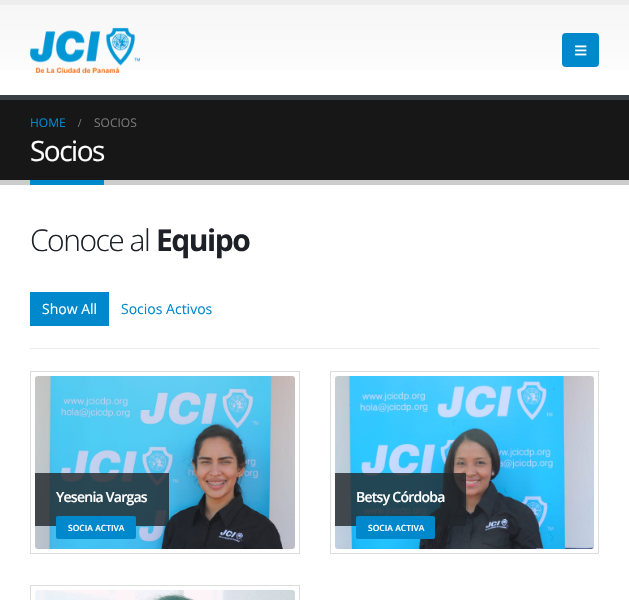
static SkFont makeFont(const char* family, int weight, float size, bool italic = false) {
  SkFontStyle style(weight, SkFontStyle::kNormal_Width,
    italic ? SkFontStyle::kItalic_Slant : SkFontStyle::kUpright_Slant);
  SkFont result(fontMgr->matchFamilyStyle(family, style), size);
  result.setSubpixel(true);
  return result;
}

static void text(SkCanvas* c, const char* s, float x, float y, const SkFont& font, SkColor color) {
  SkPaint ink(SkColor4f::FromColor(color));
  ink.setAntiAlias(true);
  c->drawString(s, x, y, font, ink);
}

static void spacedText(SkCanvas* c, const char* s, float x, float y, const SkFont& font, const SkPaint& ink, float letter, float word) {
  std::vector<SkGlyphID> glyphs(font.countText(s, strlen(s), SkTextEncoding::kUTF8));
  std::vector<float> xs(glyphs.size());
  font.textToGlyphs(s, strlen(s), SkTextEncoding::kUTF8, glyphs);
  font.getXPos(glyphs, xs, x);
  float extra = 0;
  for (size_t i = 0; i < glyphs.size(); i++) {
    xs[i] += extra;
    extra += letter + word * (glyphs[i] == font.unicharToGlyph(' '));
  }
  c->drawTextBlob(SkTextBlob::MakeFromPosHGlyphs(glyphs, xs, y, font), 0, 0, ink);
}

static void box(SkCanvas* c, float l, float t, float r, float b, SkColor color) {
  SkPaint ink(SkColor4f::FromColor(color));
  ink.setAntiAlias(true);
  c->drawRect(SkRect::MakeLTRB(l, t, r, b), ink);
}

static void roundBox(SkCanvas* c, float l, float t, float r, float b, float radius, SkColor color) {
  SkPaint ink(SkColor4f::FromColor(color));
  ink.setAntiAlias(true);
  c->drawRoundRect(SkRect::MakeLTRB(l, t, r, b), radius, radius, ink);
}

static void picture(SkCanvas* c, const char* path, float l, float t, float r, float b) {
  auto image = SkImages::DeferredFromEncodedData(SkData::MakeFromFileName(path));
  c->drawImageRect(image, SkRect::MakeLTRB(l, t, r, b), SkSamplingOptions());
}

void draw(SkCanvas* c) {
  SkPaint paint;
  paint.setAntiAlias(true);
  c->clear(0xffffffff);
  box(c, 0, 0, 629, 5, 0xffededed);
  {
    const SkColor colors[] = {0xfff6f6f6, 0xffffffff};
    const float stops[] = {0, 1};
    const SkPoint ends[] = {{315, 5}, {315, 95}};
    paint.setShader(SkGradientShader::MakeLinear(ends, colors, stops, 2, SkTileMode::kClamp));
    paint.setAlpha(255);
  }
  c->drawRect(SkRect::MakeLTRB(0, 5, 629, 70), paint);
  picture(c, "img_01.png", 30, 27, 140, 73);
  roundBox(c, 562, 33, 599, 67, 4, 0xff0088cc);
  picture(c, "img_02.png", 575, 45, 587, 56);
  box(c, 0, 100, 629, 180, 0xff171717);
  box(c, 0, 95, 629, 100, 0xff384045);
  box(c, 0, 180, 629, 185, 0xffcccccc);
  SkFont face1 = makeFont("Open Sans", 400, 12);
  text(c, "HOME", 30, 127, face1, 0xff0088cc);
  SkFont face2 = makeFont("Liberation Serif", 700, 12);
  text(c, "/", 78, 127, face2, 0xff777777);
  text(c, "SOCIOS", 94, 127, face1, 0xff777777);
  SkFont face3 = makeFont("Open Sans", 400, 28);
  paint.setShader(nullptr);
  paint.setColor(0xffffffff);
  spacedText(c, "Socios", 30, 161, face3, paint, -1.5f, 0);
  box(c, 30, 180, 104, 185, 0xff0088cc);
  SkFont face4 = makeFont("Open Sans", 300, 30);
  paint.setColor(0xff1d2127);
  spacedText(c, "Conoce al", 30, 251, face4, paint, -1.5f, 0);
  SkFont face5 = makeFont("Open Sans", 700, 30);
  spacedText(c, "Equipo", 156, 251, face5, paint, -1.5f, 0);
  box(c, 30, 292, 109, 326, 0xff0088cc);
  SkFont face6 = makeFont("Open Sans", 400, 14);
  text(c, "Show All", 42, 314, face6, 0xffffffff);
  text(c, "Socios Activos", 121, 314, face6, 0xff0088cc);
  box(c, 30, 348, 599, 349, 0xffebebeb);
  paint.setStyle(SkPaint::kStroke_Style);
  paint.setStrokeWidth(1);
  paint.setColor(0xffdddddd);
  c->drawRect(SkRect::MakeLTRB(30.5f, 371.5f, 299.5f, 553.5f), paint);
  picture(c, "img_03.png", 35, 376, 295, 549);
  box(c, 35, 473, 169, 526, 0xcc212529);
  SkFont face7 = makeFont("Open Sans", 600, 14);
  paint.setStyle(SkPaint::kFill_Style);
  paint.setColor(0xffffffff);
  spacedText(c, "Yesenia Vargas", 56, 502, face7, paint, -0.75f, 0);
  roundBox(c, 56, 516, 136, 539, 2, 0xff0088cc);
  SkFont face8 = makeFont("Open Sans", 600, 8.5f);
  text(c, "SOCIA ACTIVA", 68, 531, face8, 0xffffffff);
  paint.setStyle(SkPaint::kStroke_Style);
  paint.setColor(0xffdddddd);
  c->drawRect(SkRect::MakeLTRB(330.5f, 371.5f, 598.5f, 553.5f), paint);
  picture(c, "img_04.png", 335, 376, 594, 549);
  box(c, 335, 473, 466, 526, 0xcc212529);
  paint.setStyle(SkPaint::kFill_Style);
  paint.setColor(0xffffffff);
  spacedText(c, "Betsy Córdoba", 356, 502, face7, paint, -0.75f, 0);
  roundBox(c, 356, 516, 435, 539, 2, 0xff0088cc);
  text(c, "SOCIA ACTIVA", 368, 531, face8, 0xffffffff);
  paint.setStyle(SkPaint::kStroke_Style);
  paint.setColor(0xffdddddd);
  c->drawRect(SkRect::MakeLTRB(30.5f, 585.5f, 299.5f, 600.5f), paint);
  picture(c, "img_05.png", 35, 590, 295, 600);
}
